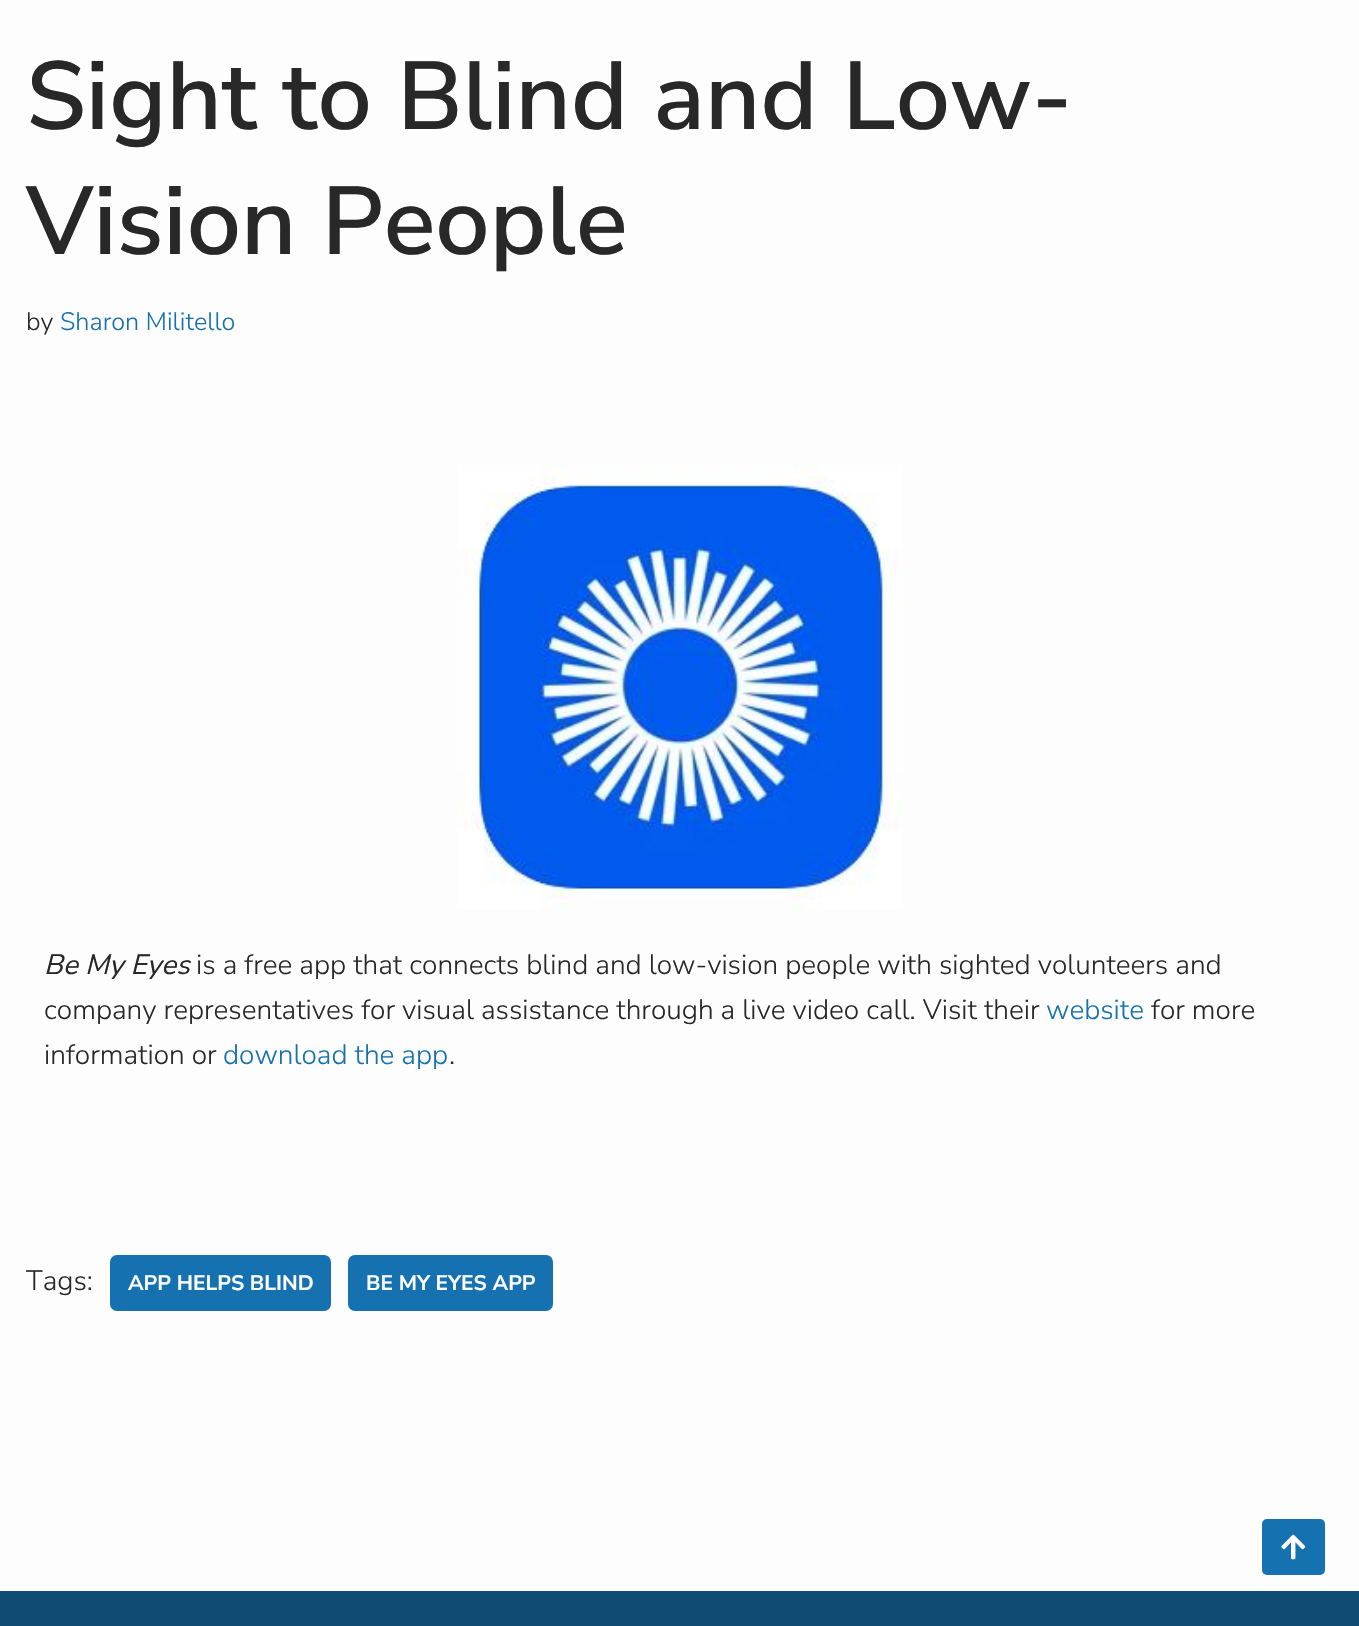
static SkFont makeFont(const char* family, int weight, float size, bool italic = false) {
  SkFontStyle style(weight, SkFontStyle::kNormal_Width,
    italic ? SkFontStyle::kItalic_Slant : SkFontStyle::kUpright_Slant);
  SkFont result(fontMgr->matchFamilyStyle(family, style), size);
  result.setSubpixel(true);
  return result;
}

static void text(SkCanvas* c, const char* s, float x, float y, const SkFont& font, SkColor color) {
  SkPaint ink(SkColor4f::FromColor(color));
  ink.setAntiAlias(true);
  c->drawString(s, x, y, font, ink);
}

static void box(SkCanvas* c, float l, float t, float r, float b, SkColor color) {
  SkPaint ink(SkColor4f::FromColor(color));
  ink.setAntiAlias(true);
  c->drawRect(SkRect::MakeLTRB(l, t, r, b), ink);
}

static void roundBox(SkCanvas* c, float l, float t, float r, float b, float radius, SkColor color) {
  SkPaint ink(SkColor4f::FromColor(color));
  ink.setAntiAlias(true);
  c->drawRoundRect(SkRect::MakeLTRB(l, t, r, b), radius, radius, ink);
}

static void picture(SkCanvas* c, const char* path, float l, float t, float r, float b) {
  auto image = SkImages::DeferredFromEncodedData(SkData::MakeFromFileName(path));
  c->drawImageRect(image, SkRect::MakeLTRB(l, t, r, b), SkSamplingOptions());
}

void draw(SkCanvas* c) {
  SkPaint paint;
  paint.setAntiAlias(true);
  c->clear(0xfffdfdfd);
  SkFont face1 = makeFont("Nunito Sans", 600, 96.25f);
  text(c, "Sight to Blind and Low-", 26, 129, face1, 0xff282828);
  text(c, "Vision People", 26, 254, face1, 0xff282828);
  SkFont face2 = makeFont("Nunito Sans", 300, 25.25f);
  text(c, "by", 26, 330, face2, 0xff282828);
  text(c, "Sharon Militello", 60, 330, face2, 0xff1571af);
  picture(c, "img_01.png", 457, 465, 903, 910);
  SkFont face3 = makeFont("Nunito Sans", 400, 28, true);
  text(c, "Be My Eyes", 44, 974, face3, 0xff282828);
  SkFont face4 = makeFont("Nunito Sans", 300, 28);
  text(c, "is a free app that connects blind and low-vision people with sighted volunteers and", 196, 974, face4, 0xff282828);
  text(c, "company representatives for visual assistance through a live video call. Visit their", 44, 1019, face4, 0xff282828);
  text(c, "website", 1046, 1019, face4, 0xff1571af);
  text(c, "for more", 1151, 1019, face4, 0xff282828);
  text(c, "information or", 44, 1064, face4, 0xff282828);
  text(c, "download the app", 223, 1064, face4, 0xff1571af);
  text(c, ".", 449, 1064, face4, 0xff282828);
  text(c, "Tags:", 26, 1290, face4, 0xff282828);
  roundBox(c, 110, 1255, 331, 1311, 7, 0xff1571af);
  SkFont face5 = makeFont("Nunito Sans", 700, 21);
  text(c, "APP HELPS BLIND", 128, 1290, face5, 0xffffffff);
  roundBox(c, 348, 1255, 553, 1311, 7, 0xff1571af);
  text(c, "BE MY EYES APP", 366, 1290, face5, 0xffffffff);
  roundBox(c, 1262, 1519, 1325, 1575, 5, 0xff1571af);
  picture(c, "img_02.png", 1281, 1534, 1306, 1560);
  box(c, 0, 1591, 1359, 1626, 0xff104b73);
}
